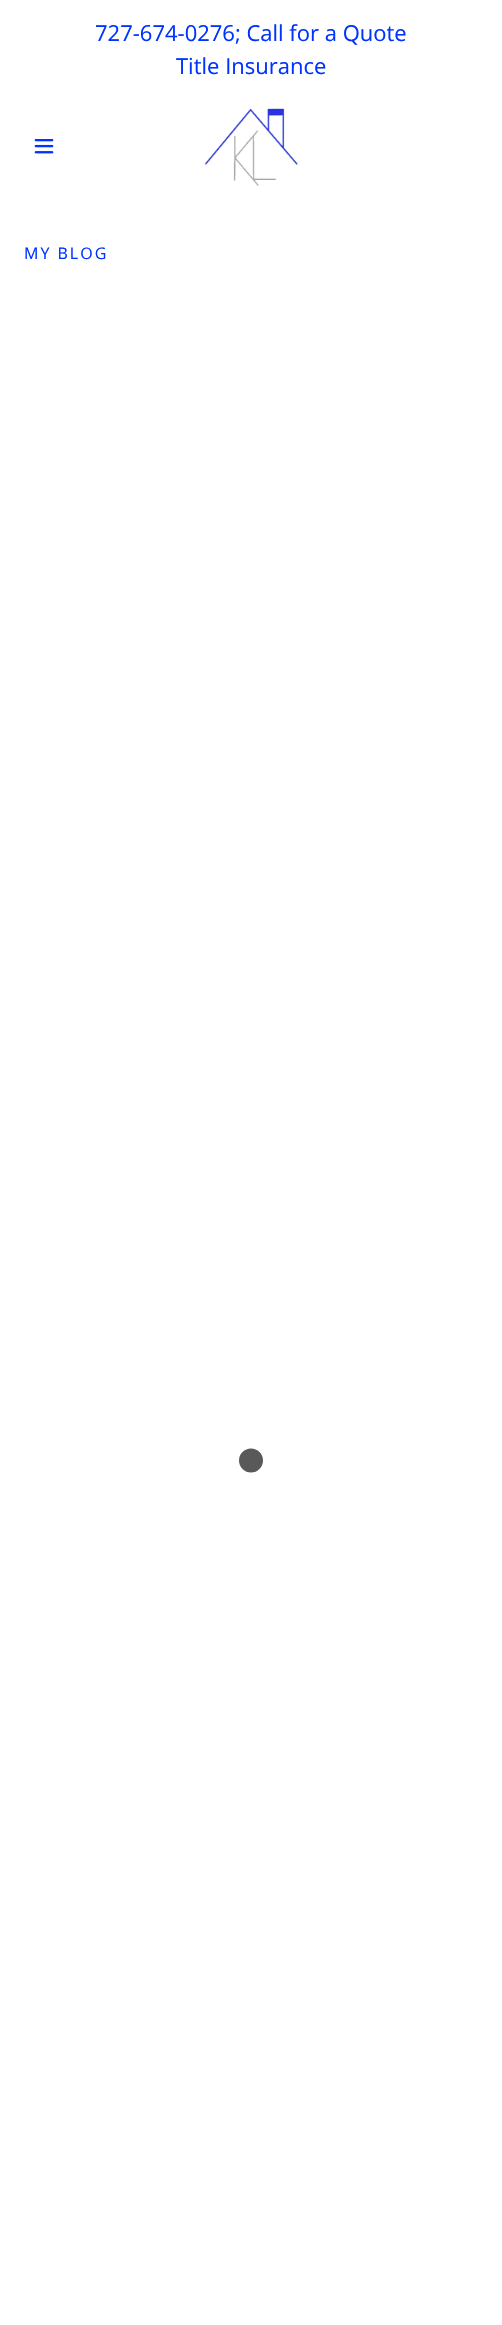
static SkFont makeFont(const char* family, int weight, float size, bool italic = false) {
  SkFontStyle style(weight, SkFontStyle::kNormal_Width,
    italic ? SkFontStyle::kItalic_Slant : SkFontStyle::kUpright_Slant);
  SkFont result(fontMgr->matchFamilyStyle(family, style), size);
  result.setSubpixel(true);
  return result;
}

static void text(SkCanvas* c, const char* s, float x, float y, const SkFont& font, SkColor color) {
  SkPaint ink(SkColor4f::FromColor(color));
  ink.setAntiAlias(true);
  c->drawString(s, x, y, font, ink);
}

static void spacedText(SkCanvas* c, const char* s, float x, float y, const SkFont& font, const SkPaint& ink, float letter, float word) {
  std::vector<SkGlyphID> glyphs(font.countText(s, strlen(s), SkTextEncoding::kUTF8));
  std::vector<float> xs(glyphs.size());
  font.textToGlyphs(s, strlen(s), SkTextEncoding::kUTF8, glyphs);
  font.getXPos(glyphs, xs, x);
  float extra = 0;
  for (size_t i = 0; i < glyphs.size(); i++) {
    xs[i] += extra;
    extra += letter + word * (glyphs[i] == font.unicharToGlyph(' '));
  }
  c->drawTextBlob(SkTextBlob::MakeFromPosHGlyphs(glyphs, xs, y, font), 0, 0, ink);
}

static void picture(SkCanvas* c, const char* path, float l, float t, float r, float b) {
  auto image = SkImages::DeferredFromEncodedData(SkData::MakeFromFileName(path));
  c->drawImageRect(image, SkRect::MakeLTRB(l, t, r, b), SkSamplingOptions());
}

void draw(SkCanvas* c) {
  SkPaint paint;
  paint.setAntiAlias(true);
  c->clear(0xffffffff);
  SkFont face1 = makeFont("Open Sans", 400, 22);
  text(c, "727-674-0276; Call for a Quote", 95, 41, face1, 0xff0033ff);
  text(c, "Title Insurance", 176, 74, face1, 0xff0033ff);
  picture(c, "img_01.png", 34, 139, 54, 154);
  picture(c, "img_02.png", 204, 108, 298, 186);
  SkFont face2 = makeFont("Open Sans", 400, 16);
  paint.setColor(0xff0033ff);
  spacedText(c, "MY BLOG", 24, 259, face2, paint, 2, 0);
  paint.setColor(0xff595959);
  c->drawCircle(251, 1460.5f, 12, paint);
}
